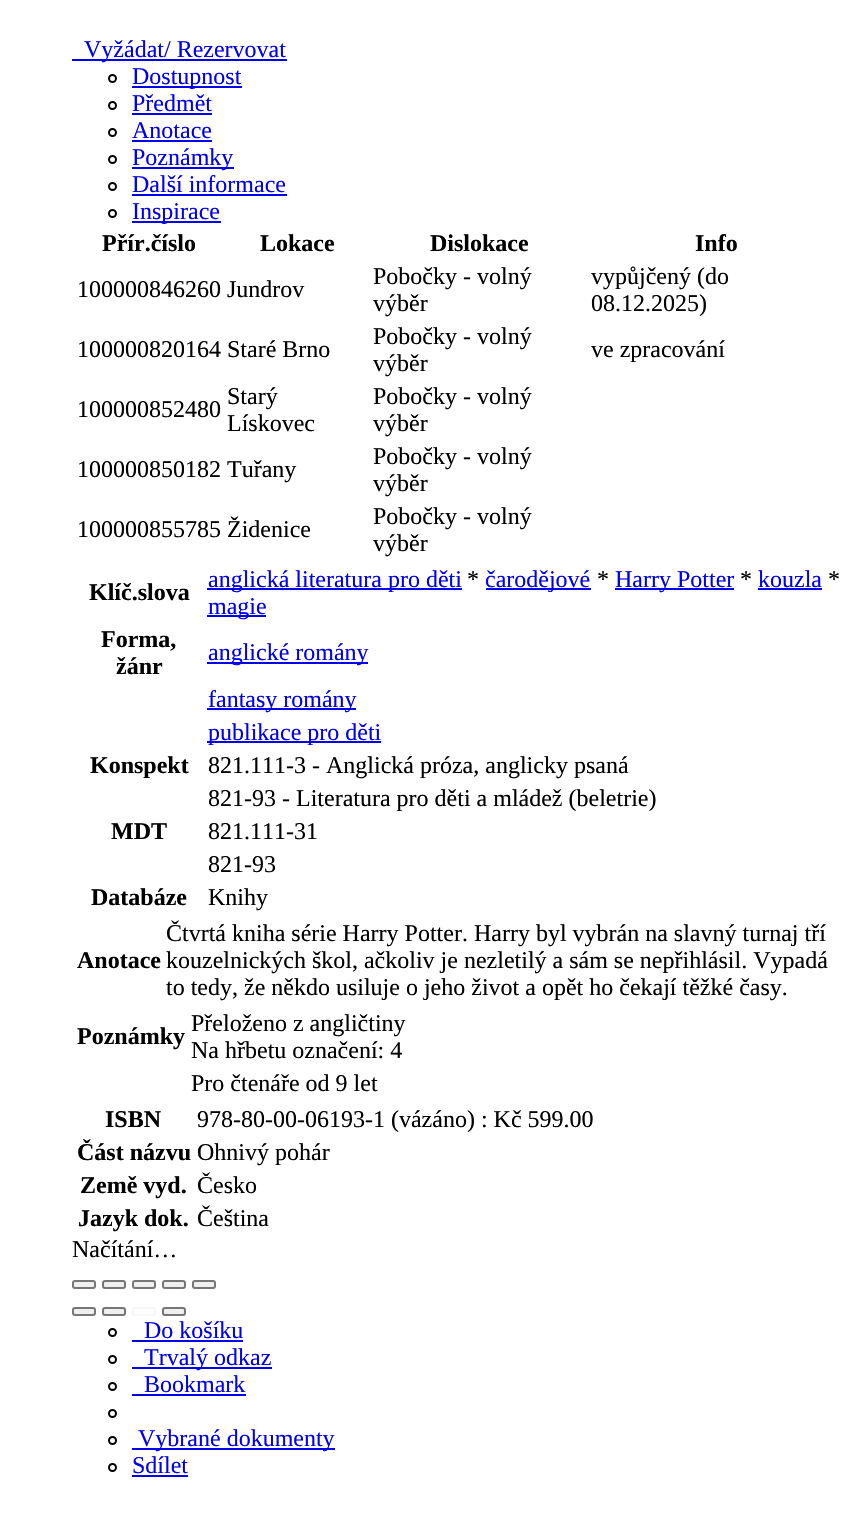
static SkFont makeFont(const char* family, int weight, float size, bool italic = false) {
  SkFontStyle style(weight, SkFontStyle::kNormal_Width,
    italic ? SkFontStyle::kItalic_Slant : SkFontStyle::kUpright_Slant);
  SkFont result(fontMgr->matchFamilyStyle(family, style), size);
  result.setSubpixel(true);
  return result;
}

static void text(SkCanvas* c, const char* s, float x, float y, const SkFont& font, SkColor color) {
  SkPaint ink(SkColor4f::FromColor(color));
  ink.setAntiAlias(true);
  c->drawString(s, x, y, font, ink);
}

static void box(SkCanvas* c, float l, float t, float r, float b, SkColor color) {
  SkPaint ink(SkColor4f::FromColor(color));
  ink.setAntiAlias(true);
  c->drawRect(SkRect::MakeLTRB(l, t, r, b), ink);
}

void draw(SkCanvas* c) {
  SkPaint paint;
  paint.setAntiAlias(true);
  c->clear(0xffffffff);
  box(c, 72, 59, 287, 61, 0xff0000ee);
  SkFont face1 = makeFont("Liberation Serif", 400, 24);
  text(c, "Vyžádat/ Rezervovat", 84, 57, face1, 0xff0000ee);
  paint.setStyle(SkPaint::kStroke_Style);
  paint.setStrokeWidth(2);
  paint.setColor(0xff000000);
  c->drawCircle(112.5f, 78.5f, 3.5f, paint);
  box(c, 132, 86, 242, 88, 0xff0000ee);
  text(c, "Dostupnost", 132, 84, face1, 0xff0000ee);
  c->drawCircle(112.5f, 105.5f, 3.5f, paint);
  text(c, "Předmět", 132, 111, face1, 0xff0000ee);
  box(c, 132, 113, 212, 115, 0xff0000ee);
  c->drawCircle(112.5f, 132.5f, 3.5f, paint);
  text(c, "Anotace", 132, 138, face1, 0xff0000ee);
  box(c, 132, 140, 212, 142, 0xff0000ee);
  c->drawCircle(112.5f, 159.5f, 3.5f, paint);
  box(c, 132, 167, 234, 169, 0xff0000ee);
  text(c, "Poznámky", 132, 165, face1, 0xff0000ee);
  c->drawCircle(112.5f, 186.5f, 3.5f, paint);
  text(c, "Další informace", 132, 192, face1, 0xff0000ee);
  box(c, 132, 194, 287, 196, 0xff0000ee);
  c->drawCircle(112.5f, 213.5f, 3.5f, paint);
  box(c, 132, 221, 221, 223, 0xff0000ee);
  text(c, "Inspirace", 132, 219, face1, 0xff0000ee);
  SkFont face2 = makeFont("Liberation Serif", 700, 24);
  text(c, "Přír.číslo", 102, 251, face2, 0xff000000);
  text(c, "Lokace", 260, 251, face2, 0xff000000);
  text(c, "Dislokace", 430, 251, face2, 0xff000000);
  text(c, "Info", 695, 251, face2, 0xff000000);
  text(c, "100000846260 Jundrov", 77, 297, face1, 0xff000000);
  text(c, "Pobočky - volný", 373, 284, face1, 0xff000000);
  text(c, "výběr", 373, 311, face1, 0xff000000);
  text(c, "vypůjčený (do", 591, 284, face1, 0xff000000);
  text(c, "08.12.2025)", 591, 311, face1, 0xff000000);
  text(c, "100000820164 Staré Brno", 77, 357, face1, 0xff000000);
  text(c, "Pobočky - volný", 373, 344, face1, 0xff000000);
  text(c, "výběr", 373, 371, face1, 0xff000000);
  text(c, "ve zpracování", 591, 357, face1, 0xff000000);
  text(c, "100000852480", 77, 417, face1, 0xff000000);
  text(c, "Starý", 227, 404, face1, 0xff000000);
  text(c, "Lískovec", 227, 431, face1, 0xff000000);
  text(c, "Pobočky - volný", 373, 404, face1, 0xff000000);
  text(c, "výběr", 373, 431, face1, 0xff000000);
  text(c, "100000850182 Tuřany", 77, 477, face1, 0xff000000);
  text(c, "Pobočky - volný", 373, 464, face1, 0xff000000);
  text(c, "výběr", 373, 491, face1, 0xff000000);
  text(c, "100000855785 Židenice", 77, 537, face1, 0xff000000);
  text(c, "Pobočky - volný", 373, 524, face1, 0xff000000);
  text(c, "výběr", 373, 551, face1, 0xff000000);
  text(c, "Klíč.slova", 89, 600, face2, 0xff000000);
  box(c, 207, 588, 462, 590, 0xff0000ee);
  text(c, "anglická literatura pro děti", 208, 587, face1, 0xff0000ee);
  text(c, "*", 467, 587, face1, 0xff000000);
  box(c, 486, 588, 591, 590, 0xff0000ee);
  text(c, "čarodějové", 485, 587, face1, 0xff0000ee);
  text(c, "*", 597, 587, face1, 0xff000000);
  box(c, 615, 588, 734, 590, 0xff0000ee);
  text(c, "Harry Potter", 615, 587, face1, 0xff0000ee);
  text(c, "*", 740, 587, face1, 0xff000000);
  text(c, "kouzla", 758, 587, face1, 0xff0000ee);
  box(c, 758, 588, 822, 590, 0xff0000ee);
  text(c, "*", 828, 587, face1, 0xff000000);
  box(c, 207, 615, 266, 617, 0xff0000ee);
  text(c, "magie", 208, 614, face1, 0xff0000ee);
  text(c, "Forma,", 101, 647, face2, 0xff000000);
  text(c, "žánr", 116, 674, face2, 0xff000000);
  box(c, 207, 662, 368, 664, 0xff0000ee);
  text(c, "anglické romány", 208, 660, face1, 0xff0000ee);
  box(c, 207, 708, 356, 710, 0xff0000ee);
  text(c, "fantasy romány", 208, 707, face1, 0xff0000ee);
  box(c, 207, 741, 381, 743, 0xff0000ee);
  text(c, "publikace pro děti", 208, 740, face1, 0xff0000ee);
  text(c, "Konspekt", 90, 773, face2, 0xff000000);
  text(c, "821.111-3 - Anglická próza, anglicky psaná", 208, 773, face1, 0xff000000);
  text(c, "821-93 - Literatura pro děti a mládež (beletrie)", 208, 806, face1, 0xff000000);
  text(c, "MDT", 111, 839, face2, 0xff000000);
  text(c, "821.111-31", 208, 839, face1, 0xff000000);
  text(c, "821-93", 208, 872, face1, 0xff000000);
  text(c, "Databáze", 91, 905, face2, 0xff000000);
  text(c, "Knihy", 208, 905, face1, 0xff000000);
  text(c, "Anotace", 77, 968, face2, 0xff000000);
  text(c, "Čtvrtá kniha série Harry Potter. Harry byl vybrán na slavný turnaj tří", 166, 941, face1, 0xff000000);
  text(c, "kouzelnických škol, ačkoliv je nezletilý a sám se nepřihlásil. Vypadá", 166, 968, face1, 0xff000000);
  text(c, "to tedy, že někdo usiluje o jeho život a opět ho čekají těžké časy.", 166, 995, face1, 0xff000000);
  text(c, "Poznámky", 77, 1044, face2, 0xff000000);
  text(c, "Přeloženo z angličtiny", 191, 1031, face1, 0xff000000);
  text(c, "Na hřbetu označení: 4", 191, 1058, face1, 0xff000000);
  text(c, "Pro čtenáře od 9 let", 191, 1091, face1, 0xff000000);
  text(c, "ISBN", 105, 1127, face2, 0xff000000);
  text(c, "978-80-00-06193-1 (vázáno) : Kč 599.00", 197, 1127, face1, 0xff000000);
  text(c, "Část názvu", 77, 1160, face2, 0xff000000);
  text(c, "Ohnivý pohár", 197, 1160, face1, 0xff000000);
  text(c, "Země vyd.", 80, 1193, face2, 0xff000000);
  text(c, "Česko", 197, 1193, face1, 0xff000000);
  text(c, "Jazyk dok.", 78, 1226, face2, 0xff000000);
  text(c, "Čeština", 197, 1226, face1, 0xff000000);
  text(c, "Načítání…", 72, 1257, face1, 0xff000000);
  paint.setStyle(SkPaint::kFill_Style);
  paint.setColor(0xffefefef);
  c->drawRoundRect(SkRect::MakeLTRB(73, 1281, 95, 1288), 2, 2, paint);
  paint.setStyle(SkPaint::kStroke_Style);
  paint.setColor(0xff767676);
  c->drawRoundRect(SkRect::MakeLTRB(73, 1281, 95, 1288), 2, 2, paint);
  paint.setStyle(SkPaint::kFill_Style);
  paint.setColor(0xffefefef);
  c->drawRoundRect(SkRect::MakeLTRB(103, 1281, 125, 1288), 2, 2, paint);
  paint.setStyle(SkPaint::kStroke_Style);
  paint.setColor(0xff767676);
  c->drawRoundRect(SkRect::MakeLTRB(103, 1281, 125, 1288), 2, 2, paint);
  paint.setStyle(SkPaint::kFill_Style);
  paint.setColor(0xffefefef);
  c->drawRoundRect(SkRect::MakeLTRB(133, 1281, 155, 1288), 2, 2, paint);
  paint.setStyle(SkPaint::kStroke_Style);
  paint.setColor(0xff767676);
  c->drawRoundRect(SkRect::MakeLTRB(133, 1281, 155, 1288), 2, 2, paint);
  paint.setStyle(SkPaint::kFill_Style);
  paint.setColor(0xffefefef);
  c->drawRoundRect(SkRect::MakeLTRB(163, 1281, 185, 1288), 2, 2, paint);
  paint.setStyle(SkPaint::kStroke_Style);
  paint.setColor(0xff767676);
  c->drawRoundRect(SkRect::MakeLTRB(163, 1281, 185, 1288), 2, 2, paint);
  paint.setStyle(SkPaint::kFill_Style);
  paint.setColor(0xffefefef);
  c->drawRoundRect(SkRect::MakeLTRB(193, 1281, 215, 1288), 2, 2, paint);
  paint.setStyle(SkPaint::kStroke_Style);
  paint.setColor(0xff767676);
  c->drawRoundRect(SkRect::MakeLTRB(193, 1281, 215, 1288), 2, 2, paint);
  paint.setStyle(SkPaint::kFill_Style);
  paint.setColor(0xffefefef);
  c->drawRoundRect(SkRect::MakeLTRB(73, 1308, 95, 1315), 2, 2, paint);
  paint.setStyle(SkPaint::kStroke_Style);
  paint.setColor(0xff767676);
  c->drawRoundRect(SkRect::MakeLTRB(73, 1308, 95, 1315), 2, 2, paint);
  paint.setStyle(SkPaint::kFill_Style);
  paint.setColor(0xffefefef);
  c->drawRoundRect(SkRect::MakeLTRB(103, 1308, 125, 1315), 2, 2, paint);
  paint.setStyle(SkPaint::kStroke_Style);
  paint.setColor(0xff767676);
  c->drawRoundRect(SkRect::MakeLTRB(103, 1308, 125, 1315), 2, 2, paint);
  paint.setColor(0xfff7f7f7);
  c->drawRoundRect(SkRect::MakeLTRB(133, 1308, 155, 1315), 2, 2, paint);
  paint.setStyle(SkPaint::kFill_Style);
  paint.setColor(0xffefefef);
  c->drawRoundRect(SkRect::MakeLTRB(163, 1308, 185, 1315), 2, 2, paint);
  paint.setStyle(SkPaint::kStroke_Style);
  paint.setColor(0xff767676);
  c->drawRoundRect(SkRect::MakeLTRB(163, 1308, 185, 1315), 2, 2, paint);
  paint.setColor(0xff000000);
  c->drawCircle(112.5f, 1332.5f, 3.5f, paint);
  text(c, "Do košíku", 144, 1338, face1, 0xff0000ee);
  box(c, 132, 1340, 243, 1342, 0xff0000ee);
  c->drawCircle(112.5f, 1359.5f, 3.5f, paint);
  box(c, 132, 1367, 272, 1369, 0xff0000ee);
  text(c, "Trvalý odkaz", 144, 1365, face1, 0xff0000ee);
  c->drawCircle(112.5f, 1386.5f, 3.5f, paint);
  text(c, "Bookmark", 144, 1392, face1, 0xff0000ee);
  box(c, 132, 1394, 246, 1396, 0xff0000ee);
  c->drawCircle(112.5f, 1413.5f, 3.5f, paint);
  c->drawCircle(112.5f, 1440.5f, 3.5f, paint);
  box(c, 132, 1448, 335, 1450, 0xff0000ee);
  text(c, "Vybrané dokumenty", 138, 1446, face1, 0xff0000ee);
  c->drawCircle(112.5f, 1467.5f, 3.5f, paint);
  text(c, "Sdílet", 132, 1473, face1, 0xff0000ee);
  box(c, 132, 1475, 188, 1477, 0xff0000ee);
}
